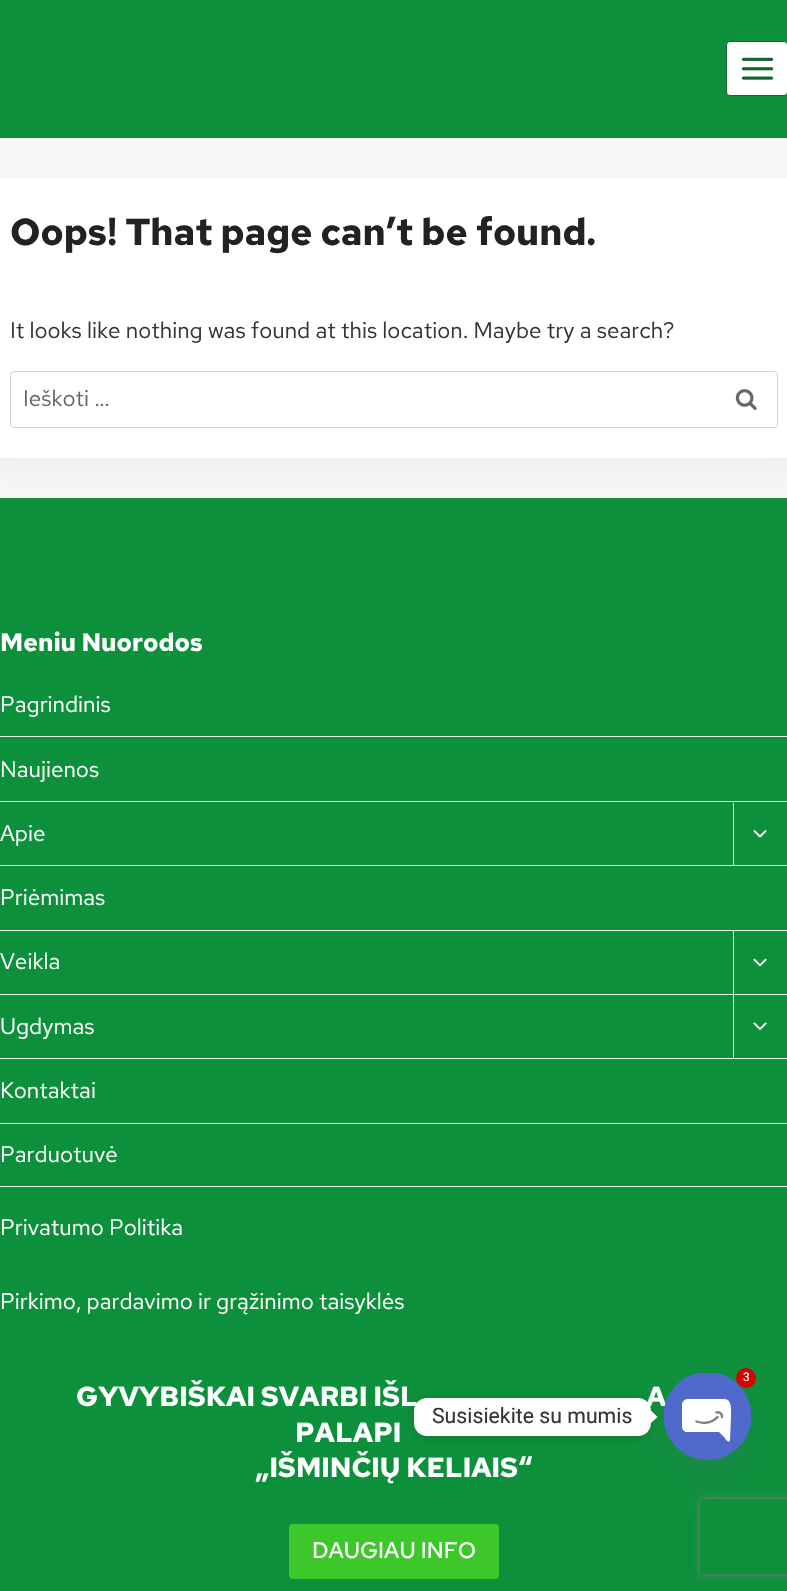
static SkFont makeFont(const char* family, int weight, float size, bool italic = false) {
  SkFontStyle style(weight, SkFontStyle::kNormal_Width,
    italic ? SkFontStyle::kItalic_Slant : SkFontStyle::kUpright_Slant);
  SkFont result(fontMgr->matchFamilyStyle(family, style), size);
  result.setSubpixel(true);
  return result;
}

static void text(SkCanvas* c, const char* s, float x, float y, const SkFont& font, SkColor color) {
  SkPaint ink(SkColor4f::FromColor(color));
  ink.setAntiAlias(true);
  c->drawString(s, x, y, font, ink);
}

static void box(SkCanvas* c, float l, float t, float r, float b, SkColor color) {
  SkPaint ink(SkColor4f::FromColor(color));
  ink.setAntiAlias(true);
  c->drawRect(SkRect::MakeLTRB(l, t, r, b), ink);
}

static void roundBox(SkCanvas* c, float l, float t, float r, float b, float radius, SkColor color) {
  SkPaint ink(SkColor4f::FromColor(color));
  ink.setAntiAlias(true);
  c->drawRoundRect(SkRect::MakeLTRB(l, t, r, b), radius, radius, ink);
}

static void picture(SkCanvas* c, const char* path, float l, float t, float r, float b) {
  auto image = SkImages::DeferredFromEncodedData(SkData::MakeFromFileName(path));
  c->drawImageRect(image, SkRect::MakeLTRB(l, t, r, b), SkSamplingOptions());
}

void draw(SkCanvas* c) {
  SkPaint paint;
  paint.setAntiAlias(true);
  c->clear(0xfff7f7f7);
  box(c, 0, 0, 787, 138, 0xff0d903b);
  paint.setColor(0xffffffff);
  c->drawRoundRect(SkRect::MakeLTRB(726.5f, 41.5f, 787.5f, 95.5f), 3.5f, 3.5f, paint);
  paint.setStyle(SkPaint::kStroke_Style);
  paint.setStrokeWidth(1);
  paint.setColor(0xff13612e);
  c->drawRoundRect(SkRect::MakeLTRB(726.5f, 41.5f, 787.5f, 95.5f), 3.5f, 3.5f, paint);
  picture(c, "img_01.png", 741, 57, 774, 80);
  box(c, 0, 498, 787, 1591, 0xff0d903b);
  paint.setStyle(SkPaint::kFill_Style);
  paint.setColor(0x0d000000);
  paint.setMaskFilter(SkMaskFilter::MakeBlur(kNormal_SkBlurStyle, 15.5f));
  c->drawRect(SkRect::MakeLTRB(-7, 209, 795, 464), paint);
  paint.setMaskFilter(nullptr);
  box(c, 0, 178, 787, 458, 0xffffffff);
  SkFont face1 = makeFont("Red Hat Text", 700, 37.5f);
  text(c, "Oops! That page can’t be found.", 10, 245, face1, 0xff222222);
  SkFont face2 = makeFont("Red Hat Text", 400, 22.5f);
  text(c, "It looks like nothing was found at this location. Maybe try a search?", 10, 338, face2, 0xff353535);
  paint.setStyle(SkPaint::kStroke_Style);
  paint.setColor(0xffcbd5e0);
  c->drawRoundRect(SkRect::MakeLTRB(10.5f, 371.5f, 777.5f, 427.5f), 3.5f, 3.5f, paint);
  text(c, "Ieškoti …", 23, 406, face2, 0xff676767);
  picture(c, "img_02.png", 735, 389, 757, 410);
  SkFont face3 = makeFont("Red Hat Text", 700, 25);
  text(c, "Meniu Nuorodos", 0, 651, face3, 0xffffffff);
  box(c, 0, 736, 787, 737, 0xffeeeeee);
  text(c, "Pagrindinis", 0, 712, face2, 0xffffffff);
  box(c, 0, 801, 787, 802, 0xffeeeeee);
  text(c, "Naujienos", 0, 777, face2, 0xffffffff);
  box(c, 0, 865, 787, 866, 0xffeeeeee);
  text(c, "Apie", 0, 841, face2, 0xffffffff);
  box(c, 733, 803, 734, 866, 0xffeeeeee);
  picture(c, "img_03.png", 753, 830, 767, 838);
  box(c, 0, 930, 787, 931, 0xffeeeeee);
  text(c, "Priėmimas", 0, 905, face2, 0xffffffff);
  box(c, 0, 994, 787, 995, 0xffeeeeee);
  text(c, "Veikla", 0, 969, face2, 0xffffffff);
  box(c, 733, 931, 734, 995, 0xffeeeeee);
  picture(c, "img_04.png", 753, 958, 767, 967);
  box(c, 0, 1058, 787, 1059, 0xffeeeeee);
  text(c, "Ugdymas", 0, 1034, face2, 0xffffffff);
  box(c, 733, 995, 734, 1059, 0xffeeeeee);
  picture(c, "img_05.png", 753, 1022, 767, 1030);
  box(c, 0, 1123, 787, 1124, 0xffeeeeee);
  text(c, "Kontaktai", 0, 1098, face2, 0xffffffff);
  box(c, 0, 1186, 787, 1187, 0xffeeeeee);
  text(c, "Parduotuvė", 0, 1162, face2, 0xffffffff);
  text(c, "Privatumo Politika", 0, 1235, face2, 0xffffffff);
  text(c, "Pirkimo, pardavimo ir grąžinimo taisyklės", 0, 1309, face2, 0xffffffff);
  SkFont face4 = makeFont("Red Hat Text", 700, 27.5f);
  text(c, "GYVYBIŠKAI SVARBI IŠL", 76, 1406, face4, 0xffffffff);
  text(c, "A", 646, 1406, face4, 0xffffffff);
  text(c, "PALAPI", 295, 1442, face4, 0xffffffff);
  text(c, "„IŠMINČIŲ KELIAIS“", 256, 1477, face4, 0xffffffff);
  roundBox(c, 289, 1524, 499, 1579, 4, 0xff3ec72a);
  SkFont face5 = makeFont("Red Hat Text", 500, 22.5f);
  text(c, "DAUGIAU INFO", 312, 1558, face5, 0xffffffff);
  paint.setStyle(SkPaint::kFill_Style);
  paint.setColor(0x26000000);
  paint.setMaskFilter(SkMaskFilter::MakeBlur(kNormal_SkBlurStyle, 5));
  c->drawRoundRect(SkRect::MakeLTRB(414, 1399, 651, 1438), 13, 13, paint);
  paint.setMaskFilter(nullptr);
  roundBox(c, 414, 1398, 651, 1436, 13, 0xffffffff);
  paint.setColor(0xffffffff);
  c->drawPath(SkPathBuilder().moveTo(651, 1423).lineTo(651, 1410.5f).lineTo(657.5f, 1417).close().detach(), paint);
  paint.setColor(0x2949687e);
  paint.setMaskFilter(SkMaskFilter::MakeBlur(kNormal_SkBlurStyle, 15));
  c->drawRoundRect(SkRect::MakeLTRB(664, 1393, 751, 1480), 43.5f, 43.5f, paint);
  paint.setMaskFilter(nullptr);
  c->save();
  c->clipRect(SkRect::MakeLTRB(664, 1373, 751, 1460));
  paint.setColor(0xff4f6aca);
  c->drawCircle(707.5f, 1416, 44, paint);
  c->restore();
  paint.setColor(0xffffffff);
  c->drawPath(SkPathBuilder().moveTo(724, 1399).lineTo(688, 1399).cubicTo(684, 1399, 682, 1402, 682, 1405).lineTo(682, 1426).cubicTo(682, 1430, 684, 1432, 688, 1432).lineTo(719, 1432).lineTo(725, 1438).cubicTo(725, 1439, 729, 1444, 730, 1440).lineTo(731, 1417).cubicTo(731, 1412, 733, 1399, 724, 1399).close().detach(), paint);
  paint.setStyle(SkPaint::kStroke_Style);
  paint.setStrokeWidth(2.4f);
  paint.setStrokeCap(SkPaint::kRound_Cap);
  paint.setStrokeJoin(SkPaint::kRound_Join);
  paint.setColor(0xff808080);
  c->drawPath(SkPathBuilder().moveTo(696.5f, 1421.5f).cubicTo(700.5f, 1423, 710.5f, 1425, 717.5f, 1417).moveTo(722, 1417).cubicTo(722, 1415, 721, 1411.5f, 716.5f, 1412.5f).detach(), paint);
  paint.setStyle(SkPaint::kFill_Style);
  paint.setColor(0xffdd0000);
  c->drawCircle(746, 1378, 10, paint);
  SkFont face6 = makeFont("Roboto", 400, 12);
  text(c, "3", 743, 1381, face6, 0xffffffff);
  SkFont face7 = makeFont("Roboto", 400, 21.25f);
  text(c, "Susisiekite su mumis", 432, 1423, face7, 0xff353535);
  c->save();
  c->clipPath(SkPathBuilder(SkPathFillType::kEvenOdd).moveTo(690, 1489).lineTo(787, 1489).lineTo(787, 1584).lineTo(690, 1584).close().moveTo(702.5f, 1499).lineTo(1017.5f, 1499).cubicTo(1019, 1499, 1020, 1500, 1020, 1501.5f).lineTo(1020, 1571.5f).cubicTo(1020, 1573, 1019, 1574, 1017.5f, 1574).lineTo(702.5f, 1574).cubicTo(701, 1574, 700, 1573, 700, 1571.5f).lineTo(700, 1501.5f).cubicTo(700, 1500, 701, 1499, 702.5f, 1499).close().detach(), true);
  paint.setColor(0xff808080);
  paint.setMaskFilter(SkMaskFilter::MakeBlur(kNormal_SkBlurStyle, 3));
  c->drawRoundRect(SkRect::MakeLTRB(700, 1499, 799, 1574), 2.5f, 2.5f, paint);
  paint.setMaskFilter(nullptr);
  c->restore();
}
